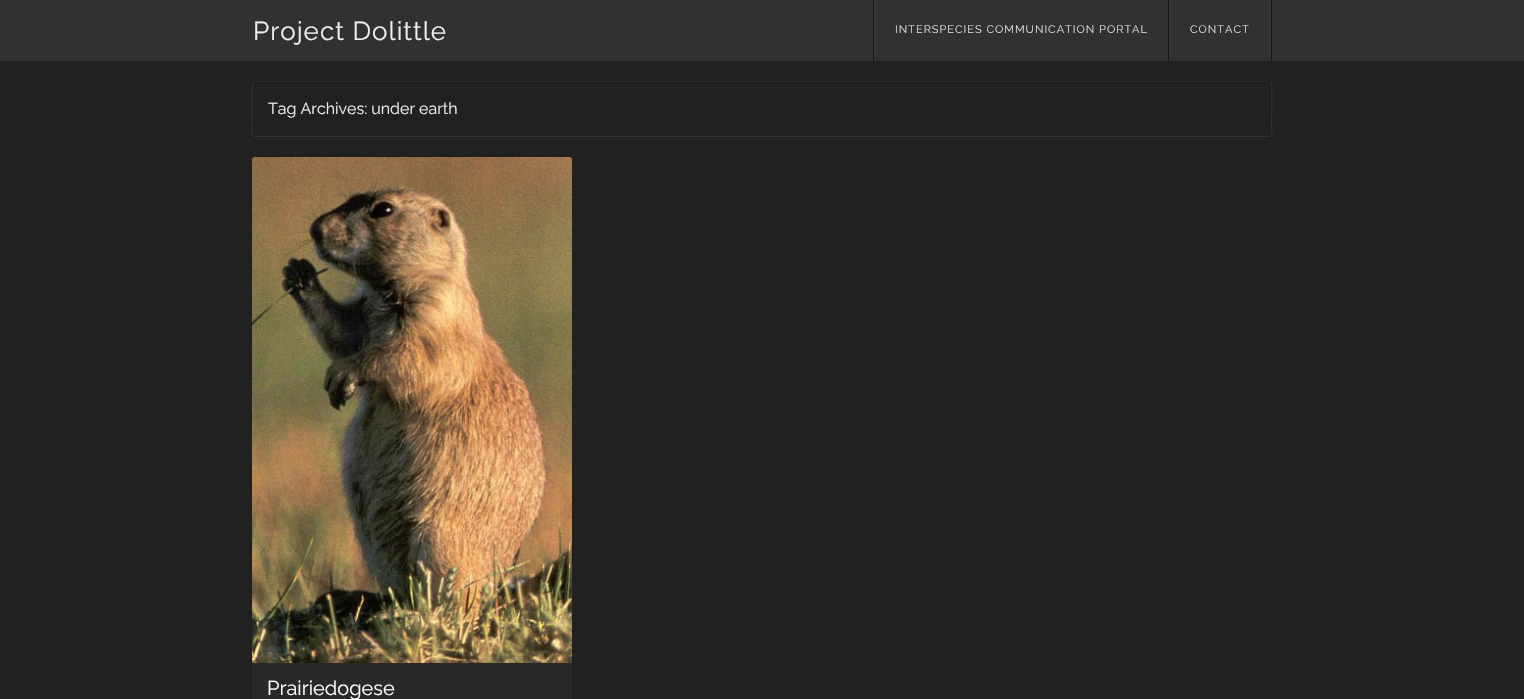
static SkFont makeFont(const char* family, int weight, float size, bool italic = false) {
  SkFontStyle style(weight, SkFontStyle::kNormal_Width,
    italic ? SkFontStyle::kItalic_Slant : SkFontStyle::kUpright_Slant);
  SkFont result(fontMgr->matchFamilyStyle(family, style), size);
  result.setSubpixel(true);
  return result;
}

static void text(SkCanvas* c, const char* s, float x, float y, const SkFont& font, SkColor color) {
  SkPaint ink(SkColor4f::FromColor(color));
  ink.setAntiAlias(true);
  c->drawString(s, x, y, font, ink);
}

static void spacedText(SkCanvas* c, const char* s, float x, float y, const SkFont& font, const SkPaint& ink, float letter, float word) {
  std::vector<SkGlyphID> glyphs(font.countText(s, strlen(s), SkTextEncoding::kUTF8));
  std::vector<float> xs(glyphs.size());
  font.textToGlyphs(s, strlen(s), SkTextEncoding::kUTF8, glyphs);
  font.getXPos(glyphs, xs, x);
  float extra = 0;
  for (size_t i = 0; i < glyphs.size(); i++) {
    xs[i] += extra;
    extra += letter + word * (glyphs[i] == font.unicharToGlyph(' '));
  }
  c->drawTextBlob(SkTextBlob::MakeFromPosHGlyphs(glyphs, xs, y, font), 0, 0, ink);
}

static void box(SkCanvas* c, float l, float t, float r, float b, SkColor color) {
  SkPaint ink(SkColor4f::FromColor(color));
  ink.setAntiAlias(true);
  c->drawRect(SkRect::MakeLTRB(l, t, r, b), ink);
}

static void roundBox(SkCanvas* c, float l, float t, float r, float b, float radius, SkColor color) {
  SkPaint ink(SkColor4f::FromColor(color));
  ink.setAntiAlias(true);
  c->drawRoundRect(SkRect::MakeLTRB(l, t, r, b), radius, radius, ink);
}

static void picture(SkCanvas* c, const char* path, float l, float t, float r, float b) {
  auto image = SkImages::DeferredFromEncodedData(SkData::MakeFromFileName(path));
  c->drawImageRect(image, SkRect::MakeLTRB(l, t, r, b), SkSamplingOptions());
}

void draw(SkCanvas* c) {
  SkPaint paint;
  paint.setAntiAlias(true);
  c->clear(0xff212121);
  box(c, 0, 0, 1524, 61, 0xff313131);
  SkFont face1 = makeFont("Raleway", 400, 26);
  paint.setColor(0xffeeeeee);
  spacedText(c, "Project Dolittle", 253, 40, face1, paint, 1, 0);
  box(c, 1271, 0, 1272, 61, 0xff161616);
  box(c, 873, 0, 874, 61, 0xff161616);
  box(c, 874, 0, 875, 61, 0xff363636);
  SkFont face2 = makeFont("Raleway", 400, 11);
  paint.setColor(0xffdddddd);
  spacedText(c, "INTERSPECIES COMMUNICATION PORTAL", 895, 33, face2, paint, 1, 0);
  box(c, 1168, 0, 1169, 61, 0xff161616);
  box(c, 1270, 0, 1271, 61, 0xff363636);
  box(c, 1169, 0, 1170, 61, 0xff363636);
  spacedText(c, "CONTACT", 1190, 33, face2, paint, 1, 0);
  paint.setColor(0xff1e1e1e);
  c->drawPath(SkPathBuilder().moveTo(255, 84).lineTo(1269, 84).lineTo(1270, 85).lineTo(1270, 127).cubicTo(1270, 127, 1272, 136, 1269, 136).cubicTo(1270, 136, 1271, 135, 1271, 134).lineTo(1271, 84).cubicTo(1271, 83, 1270, 82, 1269, 82).lineTo(255, 82).cubicTo(254, 82, 253, 83, 253, 84).lineTo(253, 134).cubicTo(253, 135, 253, 135, 254, 136).lineTo(254, 93).cubicTo(254, 93, 252, 84, 255, 84).close().detach(), paint);
  paint.setStyle(SkPaint::kStroke_Style);
  paint.setStrokeWidth(1);
  paint.setColor(0xff292929);
  c->drawPath(SkPathBuilder().moveTo(253, 82).lineTo(255, 81.5f).lineTo(1269, 81.5f).lineTo(1271, 82).detach(), paint);
  paint.setColor(0xff333333);
  c->drawPath(SkPathBuilder().moveTo(1271, 82).cubicTo(1272.5f, 84, 1271.5f, 120.5f, 1271.5f, 125.5f).cubicTo(1271.5f, 126, 1273.5f, 136.5f, 1269, 136.5f).lineTo(255, 136.5f).cubicTo(250.5f, 136.5f, 252.5f, 126, 252.5f, 125.5f).cubicTo(252.5f, 120.5f, 251.5f, 84, 253, 82).detach(), paint);
  SkFont face3 = makeFont("Raleway", 400, 16);
  text(c, "Tag Archives: under earth", 268, 114, face3, 0xffeeeeee);
  roundBox(c, 252, 157, 572, 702, 3, 0xff292929);
  picture(c, "img_01.png", 252, 157, 572, 663);
  SkFont face4 = makeFont("Raleway", 400, 20);
  text(c, "Prairiedogese", 267, 695, face4, 0xffffffff);
}
